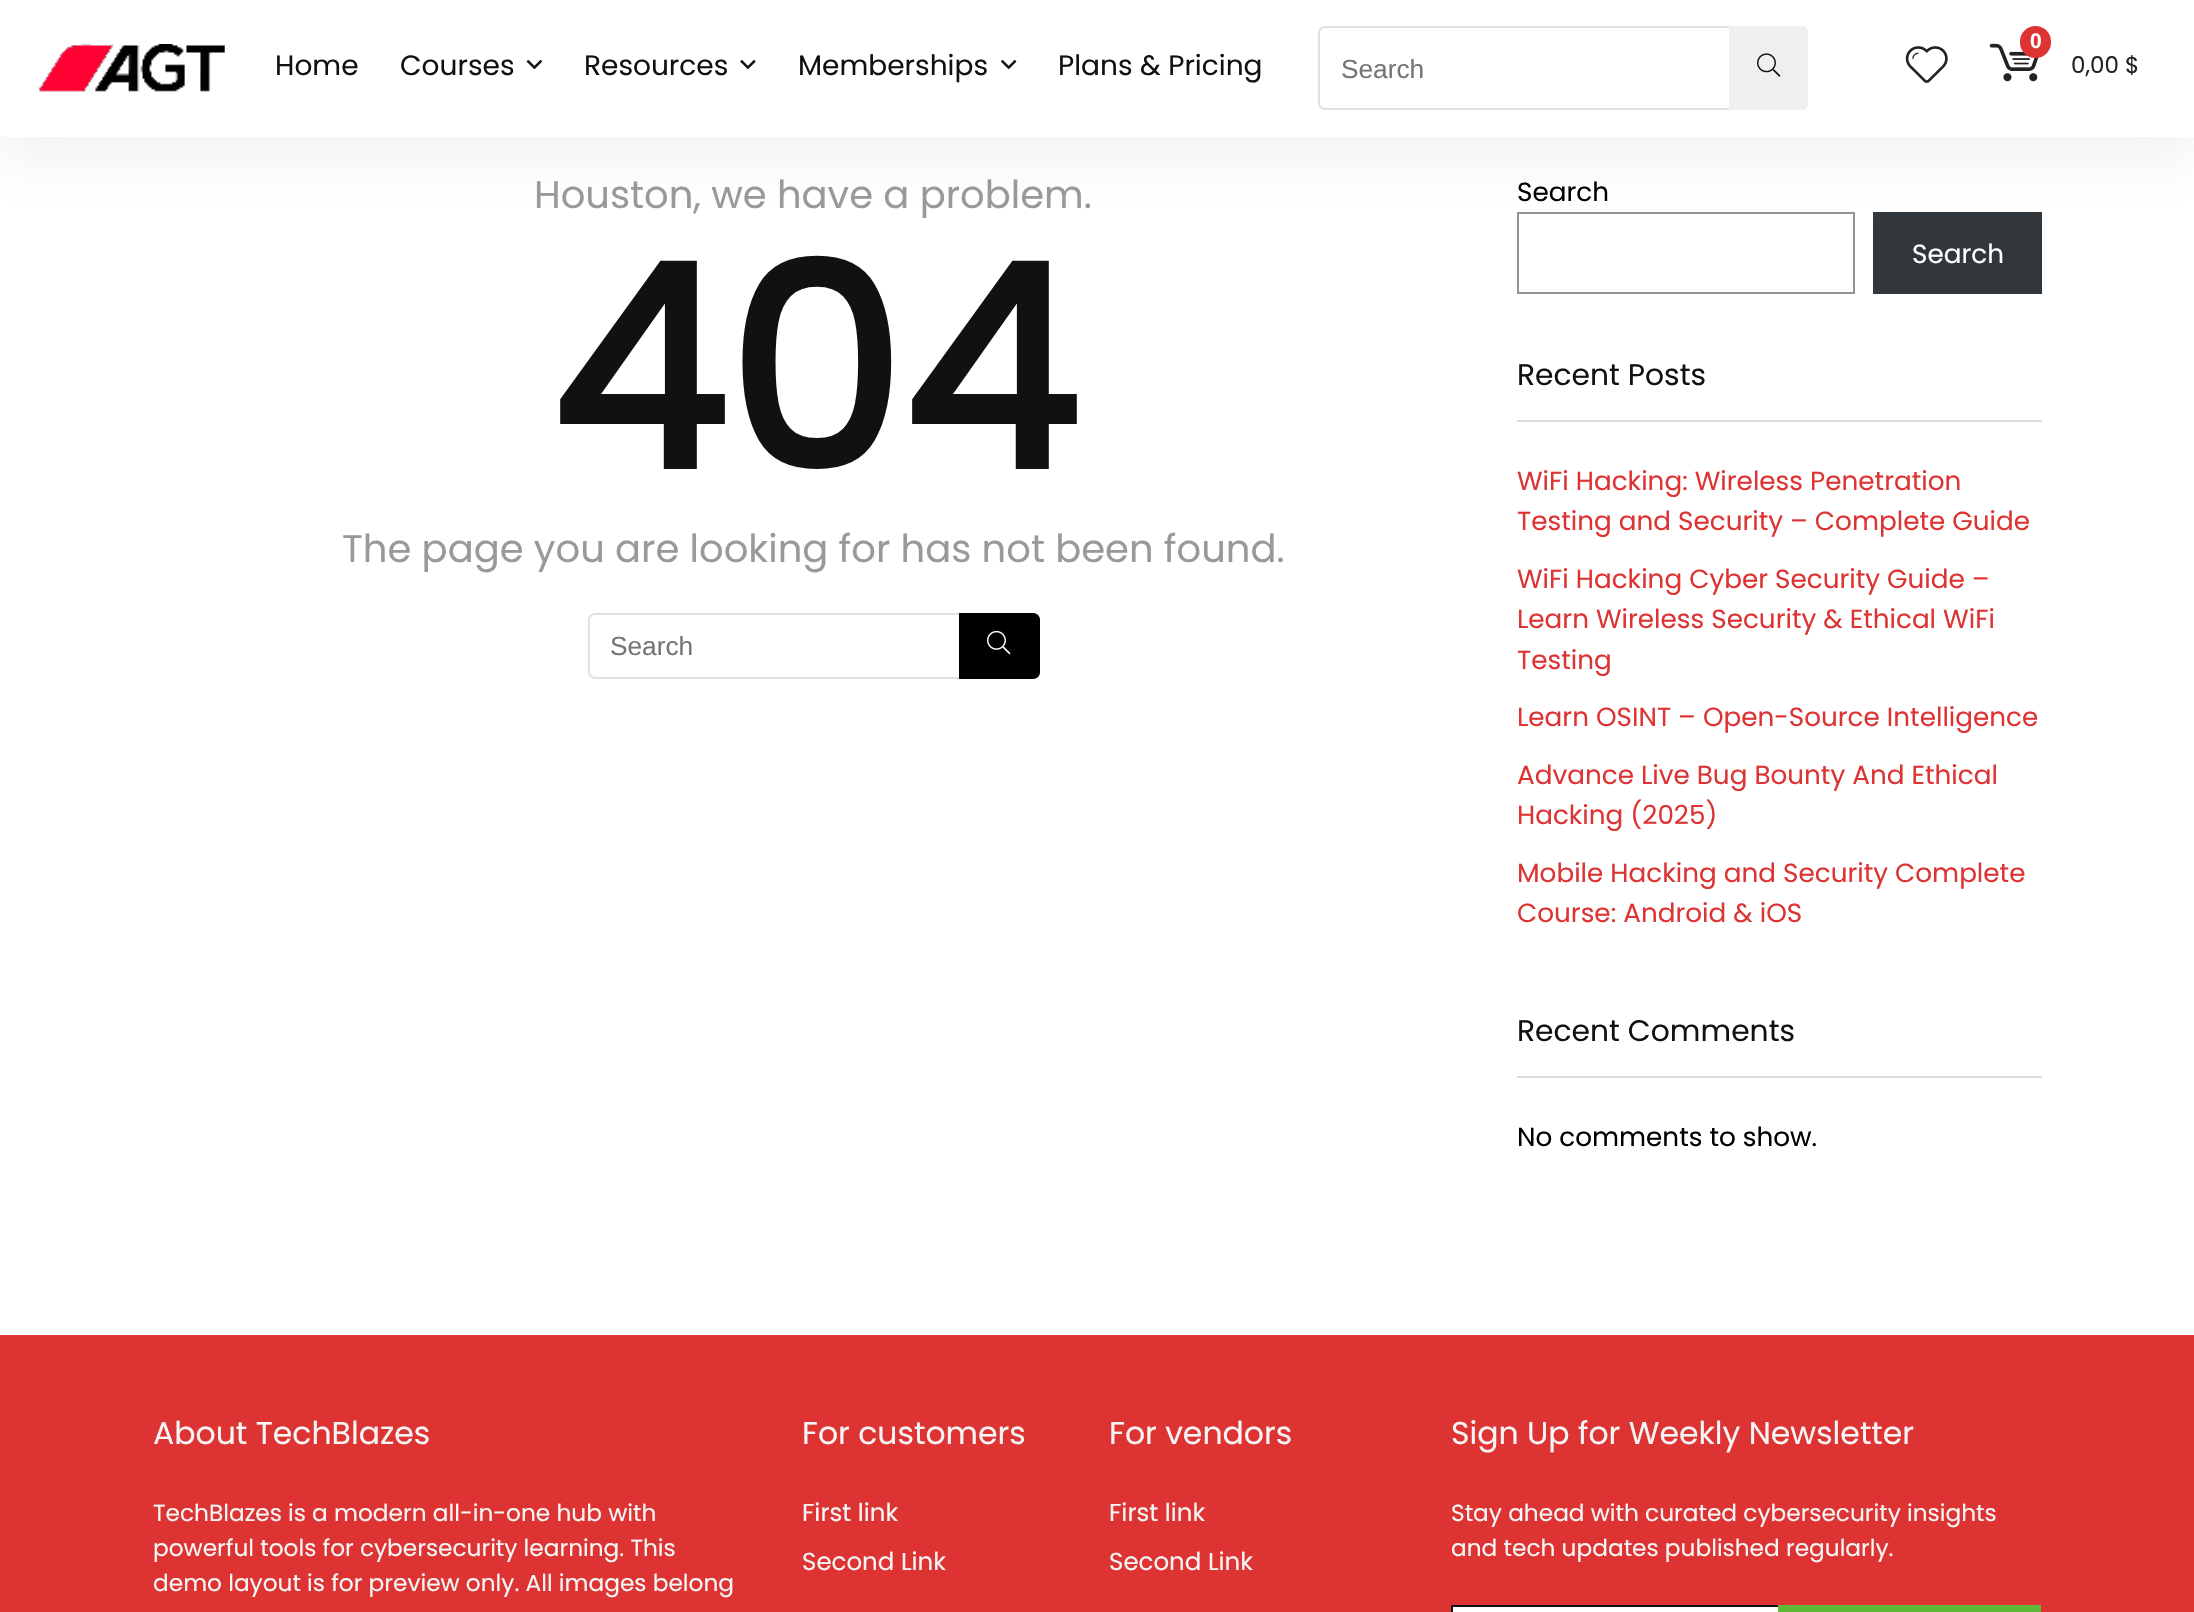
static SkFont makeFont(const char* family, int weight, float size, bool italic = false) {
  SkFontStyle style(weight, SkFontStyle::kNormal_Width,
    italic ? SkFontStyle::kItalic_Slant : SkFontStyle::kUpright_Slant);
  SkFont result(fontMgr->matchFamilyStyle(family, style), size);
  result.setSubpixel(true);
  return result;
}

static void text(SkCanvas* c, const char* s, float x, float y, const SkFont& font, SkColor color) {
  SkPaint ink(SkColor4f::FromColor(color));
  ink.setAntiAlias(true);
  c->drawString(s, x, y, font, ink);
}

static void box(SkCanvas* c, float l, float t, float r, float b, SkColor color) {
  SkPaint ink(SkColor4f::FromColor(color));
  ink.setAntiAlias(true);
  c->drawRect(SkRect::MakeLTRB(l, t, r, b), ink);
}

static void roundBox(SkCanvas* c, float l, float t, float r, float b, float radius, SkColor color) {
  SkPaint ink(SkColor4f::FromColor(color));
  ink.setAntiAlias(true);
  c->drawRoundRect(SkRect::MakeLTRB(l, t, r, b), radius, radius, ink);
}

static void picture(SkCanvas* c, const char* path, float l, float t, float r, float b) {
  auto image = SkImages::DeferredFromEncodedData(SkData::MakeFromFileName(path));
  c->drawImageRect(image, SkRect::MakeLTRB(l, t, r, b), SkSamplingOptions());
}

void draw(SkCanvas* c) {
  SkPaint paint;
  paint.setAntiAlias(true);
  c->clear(0xffffffff);
  paint.setStyle(SkPaint::kStroke_Style);
  paint.setStrokeWidth(2);
  paint.setColor(0xff949494);
  c->drawRect(SkRect::MakeLTRB(1518, 213, 1854, 293), paint);
  box(c, 1873, 212, 2042, 294, 0xff32373c);
  c->save();
  c->clipPath(SkPathBuilder(SkPathFillType::kEvenOdd).moveTo(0, 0).lineTo(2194, 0).lineTo(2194, 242).lineTo(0, 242).close().moveTo(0, 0).lineTo(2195, 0).lineTo(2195, 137).lineTo(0, 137).close().detach(), true);
  paint.setStyle(SkPaint::kFill_Style);
  paint.setColor(0x1a777b92);
  paint.setMaskFilter(SkMaskFilter::MakeBlur(kNormal_SkBlurStyle, 26));
  c->drawRect(SkRect::MakeLTRB(0, 26, 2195, 163), paint);
  paint.setMaskFilter(nullptr);
  c->restore();
  picture(c, "img_01.png", 39, 44, 225, 92);
  SkFont face1 = makeFont("Poppins", 400, 28);
  text(c, "Home", 275, 75, face1, 0xff111111);
  text(c, "Courses", 400, 75, face1, 0xff111111);
  picture(c, "img_02.png", 526, 60, 542, 70);
  text(c, "Resources", 584, 75, face1, 0xff111111);
  picture(c, "img_03.png", 740, 60, 756, 69);
  text(c, "Memberships", 798, 75, face1, 0xff111111);
  picture(c, "img_04.png", 1001, 60, 1017, 70);
  text(c, "Plans & Pricing", 1058, 75, face1, 0xff111111);
  paint.setStyle(SkPaint::kStroke_Style);
  paint.setColor(0xffe1e1e1);
  c->drawRoundRect(SkRect::MakeLTRB(1319, 27, 1807, 109), 6, 6, paint);
  SkFont face2 = makeFont("Liberation Sans", 400, 26.25f);
  text(c, "Search", 1341, 78, face2, 0xff757575);
  paint.setStyle(SkPaint::kFill_Style);
  paint.setColor(0xffefefef);
  c->drawPath(SkPathBuilder().moveTo(1729, 26).lineTo(1801, 26).cubicTo(1805, 26, 1808, 29, 1808, 33).lineTo(1808, 103).cubicTo(1808, 107, 1805, 110, 1801, 110).lineTo(1729, 110).close().detach(), paint);
  picture(c, "img_05.png", 1757, 53, 1781, 77);
  picture(c, "img_06.png", 1905, 46, 1948, 83);
  picture(c, "img_07.png", 1989, 43, 2039, 82);
  roundBox(c, 2020, 26, 2051, 58, 15.5f, 0xffdd3333);
  SkFont face3 = makeFont("Liberation Sans", 700, 21);
  text(c, "0", 2030, 48, face3, 0xffffffff);
  SkFont face4 = makeFont("Poppins", 400, 23);
  text(c, "0,00 $", 2071, 73, face4, 0xff222222);
  SkFont face5 = makeFont("Poppins", 400, 38.5f);
  text(c, "Houston, we have a problem.", 534, 208, face5, 0xff999999);
  SkFont face6 = makeFont("Poppins", 700, 280);
  text(c, "404", 549, 469, face6, 0xff111111);
  text(c, "The page you are looking for has not been found.", 342, 562, face5, 0xff999999);
  paint.setStyle(SkPaint::kStroke_Style);
  paint.setColor(0xffe1e1e1);
  c->drawRoundRect(SkRect::MakeLTRB(589, 614, 1039, 678), 6, 6, paint);
  text(c, "Search", 610, 655, face2, 0xff757575);
  paint.setStyle(SkPaint::kFill_Style);
  paint.setColor(0xff000000);
  c->drawPath(SkPathBuilder().moveTo(959, 613).lineTo(1033, 613).cubicTo(1037, 613, 1040, 616, 1040, 620).lineTo(1040, 672).cubicTo(1040, 676, 1037, 679, 1033, 679).lineTo(959, 679).close().detach(), paint);
  picture(c, "img_08.png", 987, 630, 1011, 655);
  SkFont face7 = makeFont("Poppins", 400, 26.25f);
  text(c, "Search", 1517, 201, face7, 0xff000000);
  text(c, "Search", 1912, 263, face7, 0xffffffff);
  box(c, 1517, 420, 2042, 422, 0xffdddddd);
  SkFont face8 = makeFont("Poppins", 400, 29.75f);
  text(c, "Recent Posts", 1517, 385, face8, 0xff111111);
  text(c, "WiFi Hacking: Wireless Penetration", 1517, 490, face7, 0xffdd3333);
  text(c, "Testing and Security – Complete Guide", 1517, 530, face7, 0xffdd3333);
  text(c, "WiFi Hacking Cyber Security Guide –", 1517, 588, face7, 0xffdd3333);
  text(c, "Learn Wireless Security & Ethical WiFi", 1517, 628, face7, 0xffdd3333);
  text(c, "Testing", 1517, 669, face7, 0xffdd3333);
  text(c, "Learn OSINT – Open-Source Intelligence", 1517, 726, face7, 0xffdd3333);
  text(c, "Advance Live Bug Bounty And Ethical", 1517, 784, face7, 0xffdd3333);
  text(c, "Hacking (2025)", 1517, 824, face7, 0xffdd3333);
  text(c, "Mobile Hacking and Security Complete", 1517, 882, face7, 0xffdd3333);
  text(c, "Course: Android & iOS", 1517, 922, face7, 0xffdd3333);
  box(c, 1517, 1076, 2042, 1078, 0xffdddddd);
  text(c, "Recent Comments", 1517, 1041, face8, 0xff111111);
  text(c, "No comments to show.", 1517, 1146, face7, 0xff000000);
  box(c, 0, 1335, 2194, 1612, 0xffdd3333);
  SkFont face9 = makeFont("Poppins", 400, 31.5f);
  text(c, "About TechBlazes", 153, 1444, face9, 0xfff5f5f5);
  SkFont face10 = makeFont("Poppins", 400, 23.25f);
  text(c, "TechBlazes is a modern all-in-one hub with", 153, 1521, face10, 0xfff5f5f5);
  text(c, "powerful tools for cybersecurity learning. This", 153, 1556, face10, 0xfff5f5f5);
  text(c, "demo layout is for preview only. All images belong", 153, 1591, face10, 0xfff5f5f5);
  text(c, "For customers", 802, 1444, face9, 0xfff5f5f5);
  SkFont face11 = makeFont("Poppins", 400, 24.5f);
  text(c, "First link", 802, 1521, face11, 0xfff5f5f5);
  text(c, "Second Link", 802, 1570, face11, 0xfff5f5f5);
  text(c, "For vendors", 1109, 1444, face9, 0xfff5f5f5);
  text(c, "First link", 1109, 1521, face11, 0xfff5f5f5);
  text(c, "Second Link", 1109, 1570, face11, 0xfff5f5f5);
  text(c, "Sign Up for Weekly Newsletter", 1451, 1444, face9, 0xfff5f5f5);
  text(c, "Stay ahead with curated cybersecurity insights", 1451, 1521, face10, 0xfff5f5f5);
  text(c, "and tech updates published regularly.", 1451, 1556, face10, 0xfff5f5f5);
  box(c, 1451, 1607, 1778, 1612, 0xffffffff);
  paint.setStyle(SkPaint::kStroke_Style);
  paint.setColor(0xff111111);
  c->drawRect(SkRect::MakeLTRB(1452, 1606, 2040, 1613), paint);
  box(c, 1778, 1605, 2041, 1612, 0xff5eb936);
}
